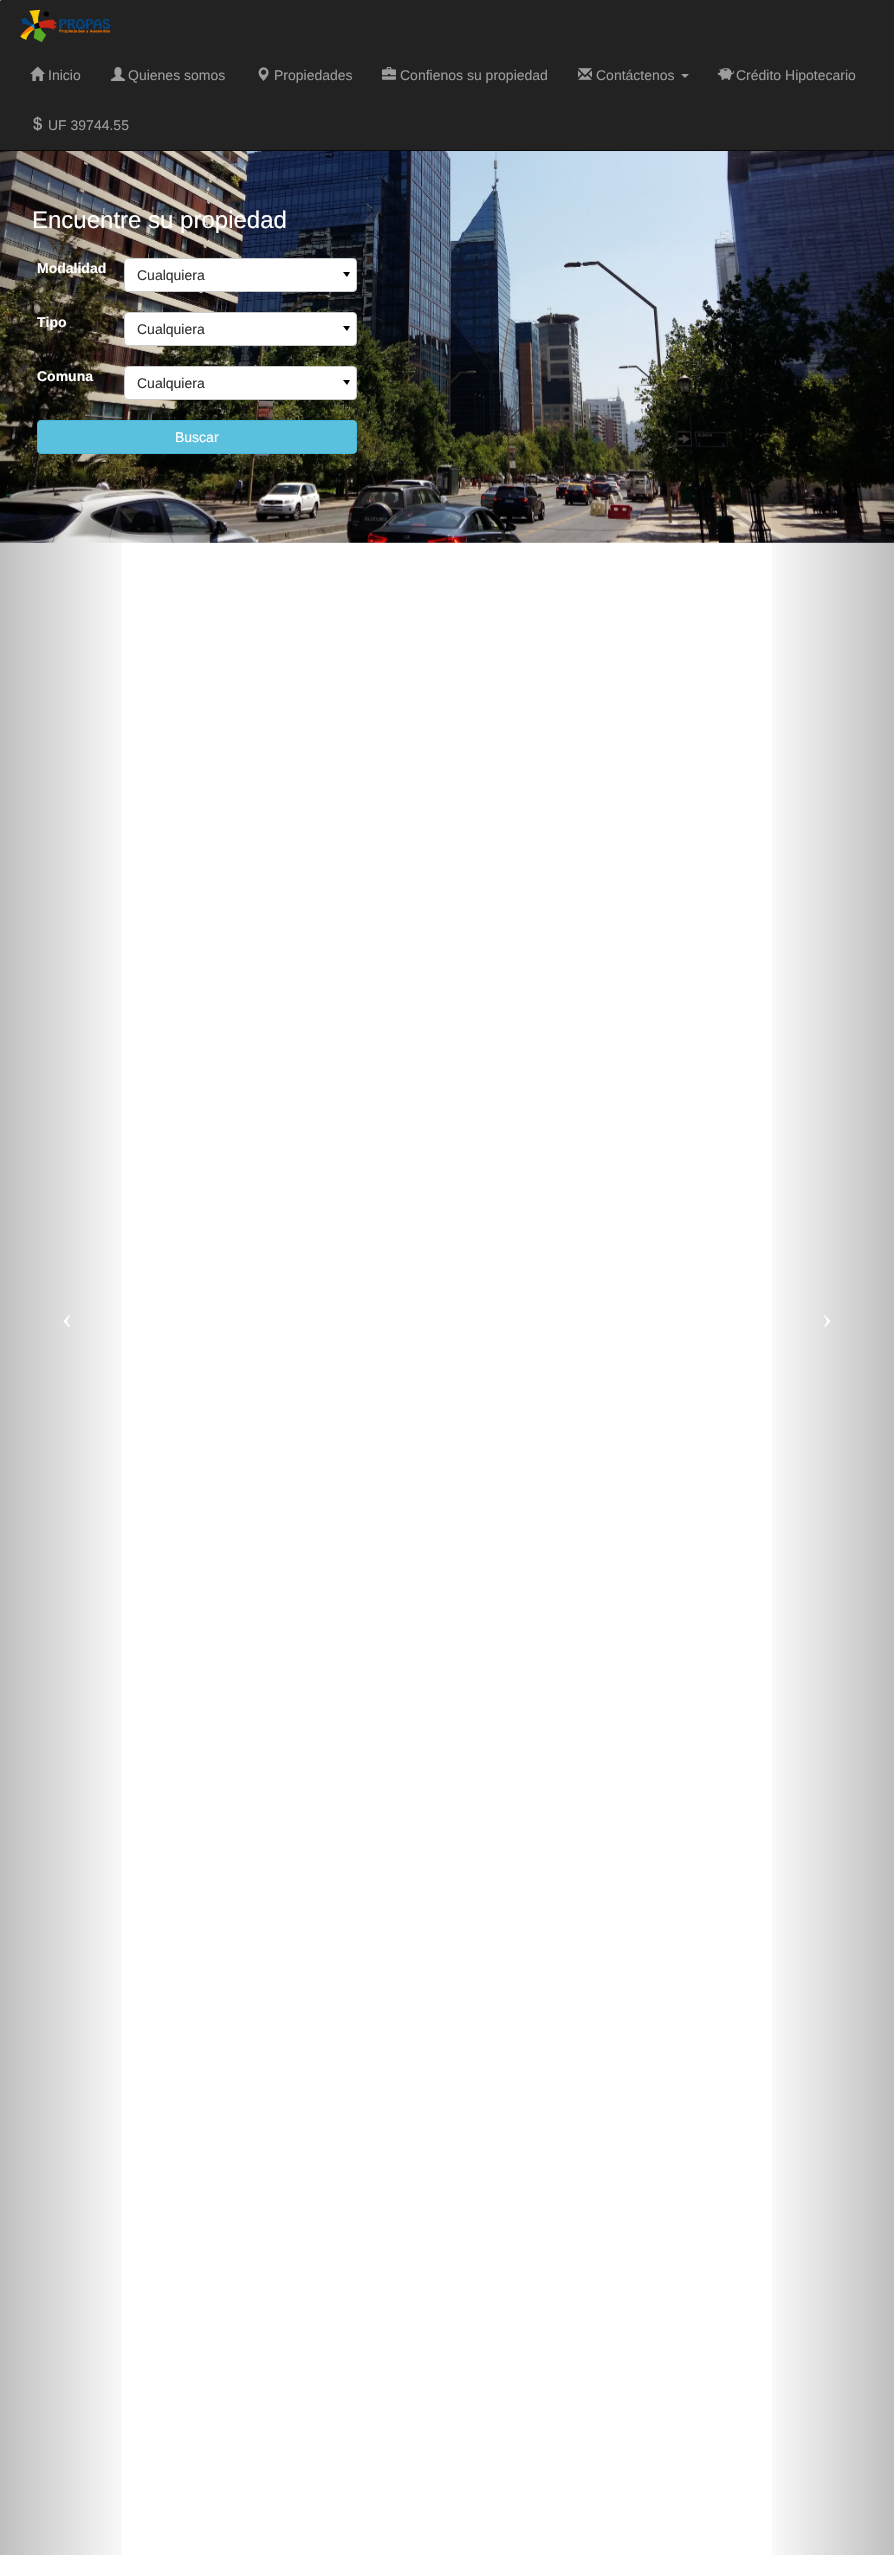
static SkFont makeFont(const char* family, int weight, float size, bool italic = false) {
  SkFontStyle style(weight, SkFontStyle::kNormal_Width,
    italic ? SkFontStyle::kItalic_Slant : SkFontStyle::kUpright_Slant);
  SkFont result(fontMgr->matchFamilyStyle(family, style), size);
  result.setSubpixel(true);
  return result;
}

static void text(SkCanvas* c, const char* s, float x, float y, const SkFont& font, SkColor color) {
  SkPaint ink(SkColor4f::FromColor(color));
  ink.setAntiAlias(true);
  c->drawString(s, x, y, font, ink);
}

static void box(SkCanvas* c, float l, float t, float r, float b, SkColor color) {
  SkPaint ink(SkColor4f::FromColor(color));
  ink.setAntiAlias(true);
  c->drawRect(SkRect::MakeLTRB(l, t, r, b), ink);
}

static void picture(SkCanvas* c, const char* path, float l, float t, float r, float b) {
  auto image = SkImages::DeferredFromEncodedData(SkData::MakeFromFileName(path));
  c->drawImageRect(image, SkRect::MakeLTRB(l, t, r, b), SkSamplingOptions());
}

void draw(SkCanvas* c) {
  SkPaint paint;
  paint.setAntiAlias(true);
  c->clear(0xffffffff);
  paint.setColor(0xff222222);
  c->drawPath(SkPathBuilder().moveTo(1, 0).lineTo(893, 0).cubicTo(894, 0, 894, 0, 894, 1).lineTo(894, 150).lineTo(0, 150).lineTo(0, 1).close().detach(), paint);
  picture(c, "img_09.png", 0, 150, 894, 543);
  {
    const SkColor colors[] = {0x40000000, 0x00000000};
    const float stops[] = {0, 1};
    const SkPoint ends[] = {{0, 1318}, {134, 1318}};
    paint.setShader(SkGradientShader::MakeLinear(ends, colors, stops, 2, SkTileMode::kClamp));
    paint.setAlpha(255);
  }
  c->drawRect(SkRect::MakeLTRB(0, 150, 122, 2555), paint);
  box(c, 1, 150, 894, 151, 0xff080808);
  picture(c, "img_01.png", 20, 9, 111, 43);
  picture(c, "img_02.png", 30, 66, 45, 81);
  SkFont face1 = makeFont("Liberation Sans", 400, 14);
  text(c, "Inicio", 48, 80, face1, 0xff9d9d9d);
  picture(c, "img_03.png", 111, 67, 125, 81);
  text(c, "Quienes somos", 128, 80, face1, 0xff9d9d9d);
  picture(c, "img_04.png", 258, 67, 269, 81);
  text(c, "Propiedades", 274, 80, face1, 0xff9d9d9d);
  picture(c, "img_05.png", 382, 67, 396, 80);
  text(c, "Confienos su propiedad", 400, 80, face1, 0xff9d9d9d);
  picture(c, "img_06.png", 578, 68, 592, 80);
  text(c, "Contáctenos", 596, 80, face1, 0xff9d9d9d);
  paint.setShader(nullptr);
  paint.setColor(0xff9d9d9d);
  c->drawPath(SkPathBuilder().moveTo(681, 74).lineTo(689, 74).lineTo(685, 78).close().detach(), paint);
  picture(c, "img_07.png", 717, 68, 735, 80);
  text(c, "Crédito Hipotecario", 736, 80, face1, 0xff9d9d9d);
  picture(c, "img_08.png", 33, 116, 42, 131);
  text(c, "UF 39744.55", 48, 130, face1, 0xff9d9d9d);
  SkFont face2 = makeFont("Liberation Sans", 400, 24);
  text(c, "Encuentre su propiedad", 32, 228, face2, 0xffffffff);
  SkFont face3 = makeFont("Liberation Sans", 700, 14);
  text(c, "Modalidad", 37, 273, face3, 0xffffffff);
  paint.setColor(0xffffffff);
  c->drawRoundRect(SkRect::MakeLTRB(124.5f, 258.5f, 356.5f, 291.5f), 3.5f, 3.5f, paint);
  paint.setStyle(SkPaint::kStroke_Style);
  paint.setStrokeWidth(1);
  paint.setColor(0xffcccccc);
  c->drawRoundRect(SkRect::MakeLTRB(124.5f, 258.5f, 356.5f, 291.5f), 3.5f, 3.5f, paint);
  text(c, "Cualquiera", 137, 280, face1, 0xff333333);
  paint.setStyle(SkPaint::kFill_Style);
  paint.setColor(0xff000000);
  c->drawPath(SkPathBuilder().moveTo(343, 272).lineTo(350, 272).lineTo(347, 277).close().detach(), paint);
  text(c, "Tipo", 37, 327, face3, 0xffffffff);
  paint.setColor(0xffffffff);
  c->drawRoundRect(SkRect::MakeLTRB(124.5f, 312.5f, 356.5f, 345.5f), 3.5f, 3.5f, paint);
  paint.setStyle(SkPaint::kStroke_Style);
  paint.setColor(0xffcccccc);
  c->drawRoundRect(SkRect::MakeLTRB(124.5f, 312.5f, 356.5f, 345.5f), 3.5f, 3.5f, paint);
  text(c, "Cualquiera", 137, 334, face1, 0xff333333);
  paint.setStyle(SkPaint::kFill_Style);
  paint.setColor(0xff000000);
  c->drawPath(SkPathBuilder().moveTo(343, 326).lineTo(350, 326).lineTo(347, 331).close().detach(), paint);
  text(c, "Comuna", 37, 381, face3, 0xffffffff);
  paint.setColor(0xffffffff);
  c->drawRoundRect(SkRect::MakeLTRB(124.5f, 366.5f, 356.5f, 399.5f), 3.5f, 3.5f, paint);
  paint.setStyle(SkPaint::kStroke_Style);
  paint.setColor(0xffcccccc);
  c->drawRoundRect(SkRect::MakeLTRB(124.5f, 366.5f, 356.5f, 399.5f), 3.5f, 3.5f, paint);
  text(c, "Cualquiera", 137, 388, face1, 0xff333333);
  paint.setStyle(SkPaint::kFill_Style);
  paint.setColor(0xff000000);
  c->drawPath(SkPathBuilder().moveTo(343, 380).lineTo(350, 380).lineTo(347, 385).close().detach(), paint);
  paint.setColor(0xff5bc0de);
  c->drawRoundRect(SkRect::MakeLTRB(37.5f, 420.5f, 356.5f, 453.5f), 3.5f, 3.5f, paint);
  paint.setStyle(SkPaint::kStroke_Style);
  paint.setColor(0xff46b8da);
  c->drawRoundRect(SkRect::MakeLTRB(37.5f, 420.5f, 356.5f, 453.5f), 3.5f, 3.5f, paint);
  text(c, "Buscar", 175, 442, face1, 0xffffffff);
  SkFont face4 = makeFont("Liberation Serif", 400, 30);
  text(c, "‹", 62, 1328, face4, 0xffffffff);
  paint.setStyle(SkPaint::kFill_Style);
  {
    const SkColor colors[] = {0x00000000, 0x40000000};
    const float stops[] = {0, 1};
    const SkPoint ends[] = {{760, 1318}, {894, 1318}};
    paint.setShader(SkGradientShader::MakeLinear(ends, colors, stops, 2, SkTileMode::kClamp));
    paint.setAlpha(255);
  }
  c->drawRect(SkRect::MakeLTRB(772, 151, 894, 2555), paint);
  text(c, "›", 822, 1328, face4, 0xffffffff);
}
